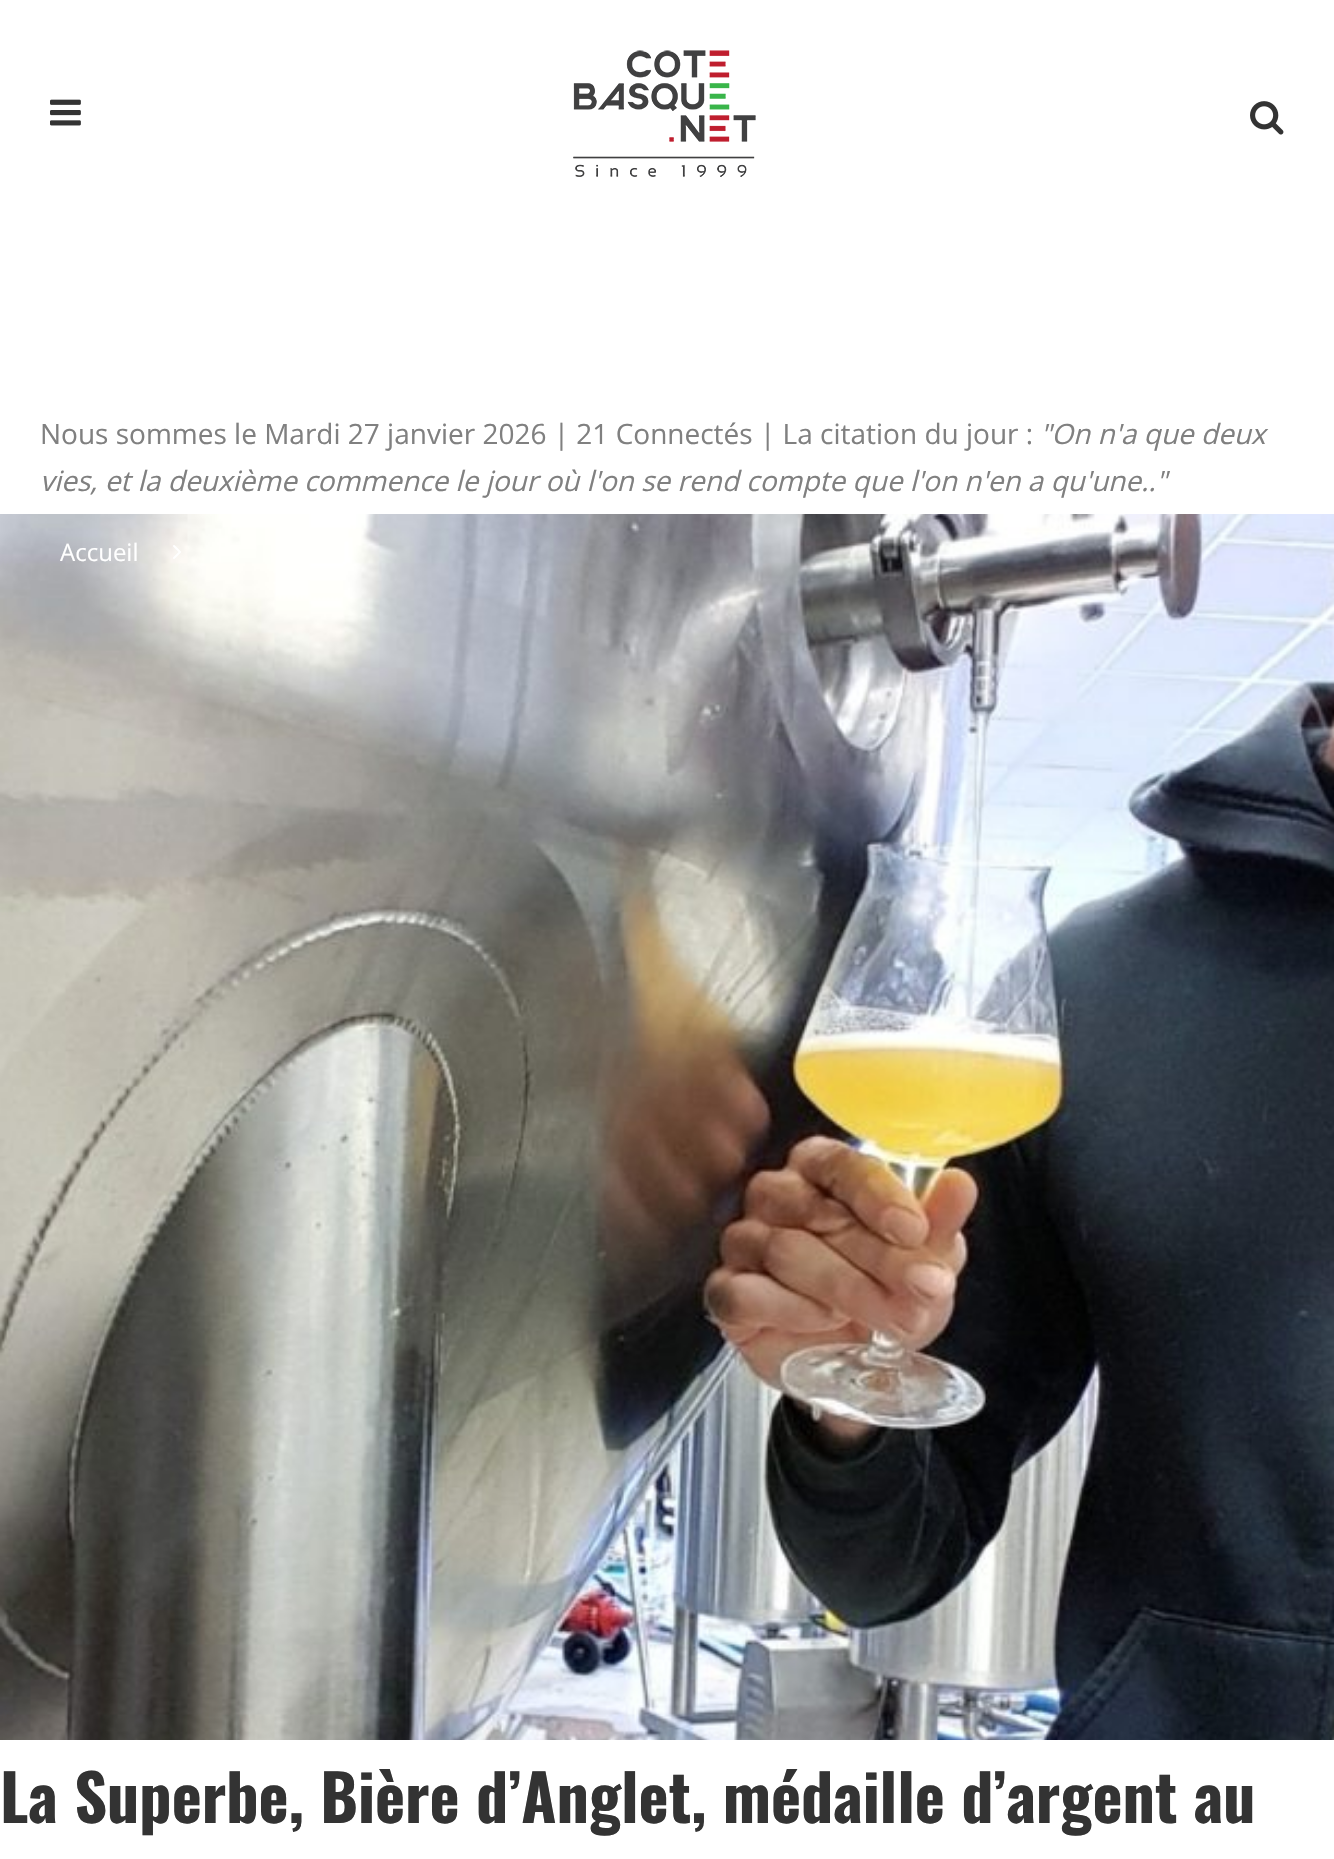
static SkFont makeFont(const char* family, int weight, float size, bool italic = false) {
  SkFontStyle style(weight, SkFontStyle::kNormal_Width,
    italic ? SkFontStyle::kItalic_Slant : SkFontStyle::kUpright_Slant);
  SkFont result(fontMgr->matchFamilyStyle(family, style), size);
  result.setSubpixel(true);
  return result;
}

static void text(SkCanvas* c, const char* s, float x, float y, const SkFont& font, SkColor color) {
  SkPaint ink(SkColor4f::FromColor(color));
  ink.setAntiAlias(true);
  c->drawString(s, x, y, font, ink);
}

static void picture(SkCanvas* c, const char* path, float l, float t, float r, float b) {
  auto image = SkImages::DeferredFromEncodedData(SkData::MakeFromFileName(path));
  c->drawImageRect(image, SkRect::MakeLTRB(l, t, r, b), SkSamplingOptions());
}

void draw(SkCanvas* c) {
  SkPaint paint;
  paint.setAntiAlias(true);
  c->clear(0xffffffff);
  picture(c, "img_01.png", 50, 99, 81, 126);
  picture(c, "img_02.png", 573, 50, 756, 177);
  picture(c, "img_03.png", 1250, 101, 1284, 135);
  SkFont face1 = makeFont("Open Sans", 400, 28);
  text(c, "Nous sommes le Mardi 27 janvier 2026 | 21 Connectés | La citation du jour :", 40, 444, face1, 0xff808080);
  SkFont face2 = makeFont("Open Sans", 400, 28, true);
  text(c, "\"On n'a que deux", 1040, 444, face2, 0xff808080);
  text(c, "vies, et la deuxième commence le jour où l'on se rend compte que l'on n'en a qu'une..\"", 40, 491, face2, 0xff808080);
  picture(c, "img_05.png", 0, 514, 1334, 1740);
  SkFont face3 = makeFont("Open Sans", 400, 24);
  text(c, "Accueil", 60, 561, face3, 0xffffffff);
  picture(c, "img_04.png", 173, 545, 181, 559);
  SkFont face4 = makeFont("Oswald", 700, 64);
  text(c, "La Superbe, Bière d’Anglet, médaille d’argent au", 0, 1823, face4, 0xff333333);
}
